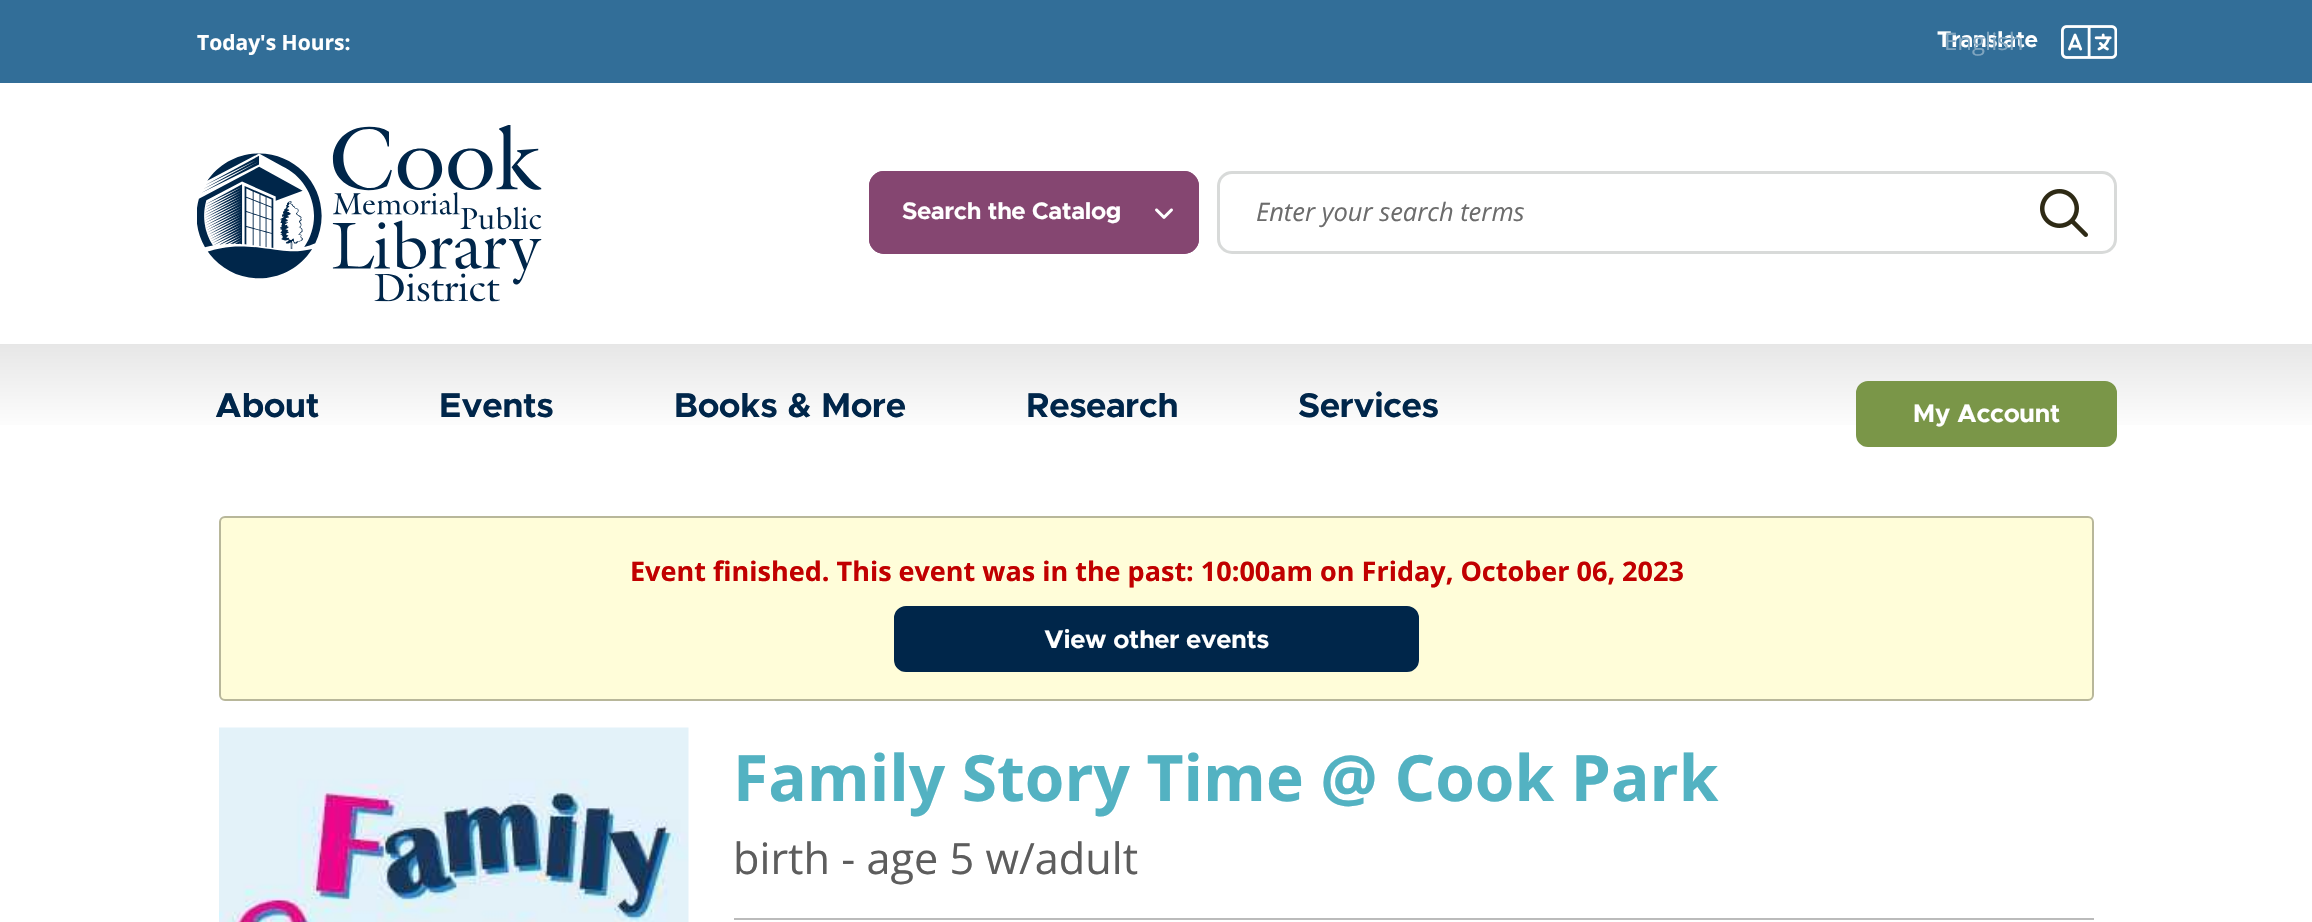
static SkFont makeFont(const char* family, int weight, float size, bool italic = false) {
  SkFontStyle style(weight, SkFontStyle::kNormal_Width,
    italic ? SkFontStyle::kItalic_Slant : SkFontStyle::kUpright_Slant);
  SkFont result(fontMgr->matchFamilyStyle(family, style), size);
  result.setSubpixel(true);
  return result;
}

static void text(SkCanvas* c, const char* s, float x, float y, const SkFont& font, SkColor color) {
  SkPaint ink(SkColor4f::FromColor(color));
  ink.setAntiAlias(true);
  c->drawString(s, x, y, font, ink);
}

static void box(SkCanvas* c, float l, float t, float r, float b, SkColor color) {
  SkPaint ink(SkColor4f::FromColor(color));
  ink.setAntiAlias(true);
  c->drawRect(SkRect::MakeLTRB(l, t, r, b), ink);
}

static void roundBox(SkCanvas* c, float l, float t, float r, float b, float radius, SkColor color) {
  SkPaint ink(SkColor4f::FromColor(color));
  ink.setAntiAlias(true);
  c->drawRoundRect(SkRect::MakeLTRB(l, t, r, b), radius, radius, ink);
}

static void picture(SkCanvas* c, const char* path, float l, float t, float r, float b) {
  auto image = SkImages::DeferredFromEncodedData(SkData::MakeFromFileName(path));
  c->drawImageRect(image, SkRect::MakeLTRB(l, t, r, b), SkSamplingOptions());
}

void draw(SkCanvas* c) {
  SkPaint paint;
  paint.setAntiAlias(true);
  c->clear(0xffffffff);
  box(c, 0, 0, 2312, 83, 0xff326e98);
  SkFont face1 = makeFont("Open Sans", 700, 21);
  text(c, "Today's Hours:", 197, 50, face1, 0xffffffff);
  SkFont face2 = makeFont("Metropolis", 700, 22.5f);
  text(c, "Translate", 1937, 47, face2, 0xffffffff);
  picture(c, "img_01.png", 2061, 25, 2117, 59);
  SkFont face3 = makeFont("Open Sans", 400, 24);
  text(c, "English", 1944, 50, face3, 0xff80a5bf);
  picture(c, "img_02.png", 197, 125, 542, 302);
  roundBox(c, 869, 171, 1199, 254, 15, 0xff854671);
  picture(c, "img_03.png", 1155, 208, 1173, 219);
  paint.setStyle(SkPaint::kStroke_Style);
  paint.setStrokeWidth(3);
  paint.setColor(0xff854671);
  c->drawRoundRect(SkRect::MakeLTRB(870.5f, 172.5f, 1197.5f, 252.5f), 13.5f, 13.5f, paint);
  SkFont face4 = makeFont("Metropolis", 700, 24);
  text(c, "Search the Catalog", 902, 219, face4, 0xffffffff);
  paint.setColor(0xffd8dad9);
  c->drawRoundRect(SkRect::MakeLTRB(1218.5f, 172.5f, 2115.5f, 252.5f), 13.5f, 13.5f, paint);
  SkFont face5 = makeFont("Open Sans", 400, 25.5f, true);
  text(c, "Enter your search terms", 1256, 221, face5, 0xff6c6c6c);
  picture(c, "img_04.png", 2040, 189, 2088, 237);
  paint.setStyle(SkPaint::kFill_Style);
  {
    const SkColor colors[] = {0xffe6e6e6, 0xffffffff};
    const float stops[] = {0, 0.64f};
    const SkPoint ends[] = {{1157, 343}, {1157, 485}};
    paint.setShader(SkGradientShader::MakeLinear(ends, colors, stops, 2, SkTileMode::kClamp));
    paint.setAlpha(255);
  }
  c->drawRect(SkRect::MakeLTRB(0, 344, 2312, 425), paint);
  SkFont face6 = makeFont("Metropolis", 700, 34.5f);
  text(c, "About", 215, 417, face6, 0xff00264a);
  text(c, "Events", 439, 417, face6, 0xff00264a);
  text(c, "Books & More", 674, 417, face6, 0xff00264a);
  text(c, "Research", 1026, 417, face6, 0xff00264a);
  text(c, "Services", 1298, 417, face6, 0xff00264a);
  paint.setShader(nullptr);
  paint.setColor(0xff7a9648);
  c->drawRoundRect(SkRect::MakeLTRB(1857.5f, 382.5f, 2115.5f, 445.5f), 10.5f, 10.5f, paint);
  paint.setStyle(SkPaint::kStroke_Style);
  c->drawRoundRect(SkRect::MakeLTRB(1857.5f, 382.5f, 2115.5f, 445.5f), 10.5f, 10.5f, paint);
  SkFont face7 = makeFont("Metropolis", 700, 25.5f);
  text(c, "My Account", 1913, 422, face7, 0xffffffff);
  paint.setStyle(SkPaint::kFill_Style);
  paint.setColor(0xfffffdd9);
  c->drawRoundRect(SkRect::MakeLTRB(220, 517, 2093, 700), 5, 5, paint);
  paint.setStyle(SkPaint::kStroke_Style);
  paint.setStrokeWidth(2);
  paint.setColor(0xffb8b79a);
  c->drawRoundRect(SkRect::MakeLTRB(220, 517, 2093, 700), 5, 5, paint);
  SkFont face8 = makeFont("Open Sans", 700, 27);
  text(c, "Event finished. This event was in the past: 10:00am on Friday, October 06, 2023", 630, 581, face8, 0xffc10000);
  paint.setStyle(SkPaint::kFill_Style);
  paint.setColor(0xff00264a);
  c->drawRoundRect(SkRect::MakeLTRB(895.5f, 607.5f, 1417.5f, 670.5f), 10.5f, 10.5f, paint);
  paint.setStyle(SkPaint::kStroke_Style);
  paint.setStrokeWidth(3);
  c->drawRoundRect(SkRect::MakeLTRB(895.5f, 607.5f, 1417.5f, 670.5f), 10.5f, 10.5f, paint);
  text(c, "View other events", 1044, 648, face7, 0xffffffff);
  picture(c, "img_05.png", 219, 727, 689, 922);
  SkFont face9 = makeFont("Open Sans", 700, 64);
  text(c, "Family Story Time @ Cook Park", 733, 801, face9, 0xff53b2c2);
  SkFont face10 = makeFont("Open Sans", 400, 43.25f);
  text(c, "birth - age 5 w/adult", 733, 874, face10, 0xff5d5d5d);
  box(c, 734, 918, 2094, 920, 0xffbbbbbb);
}
